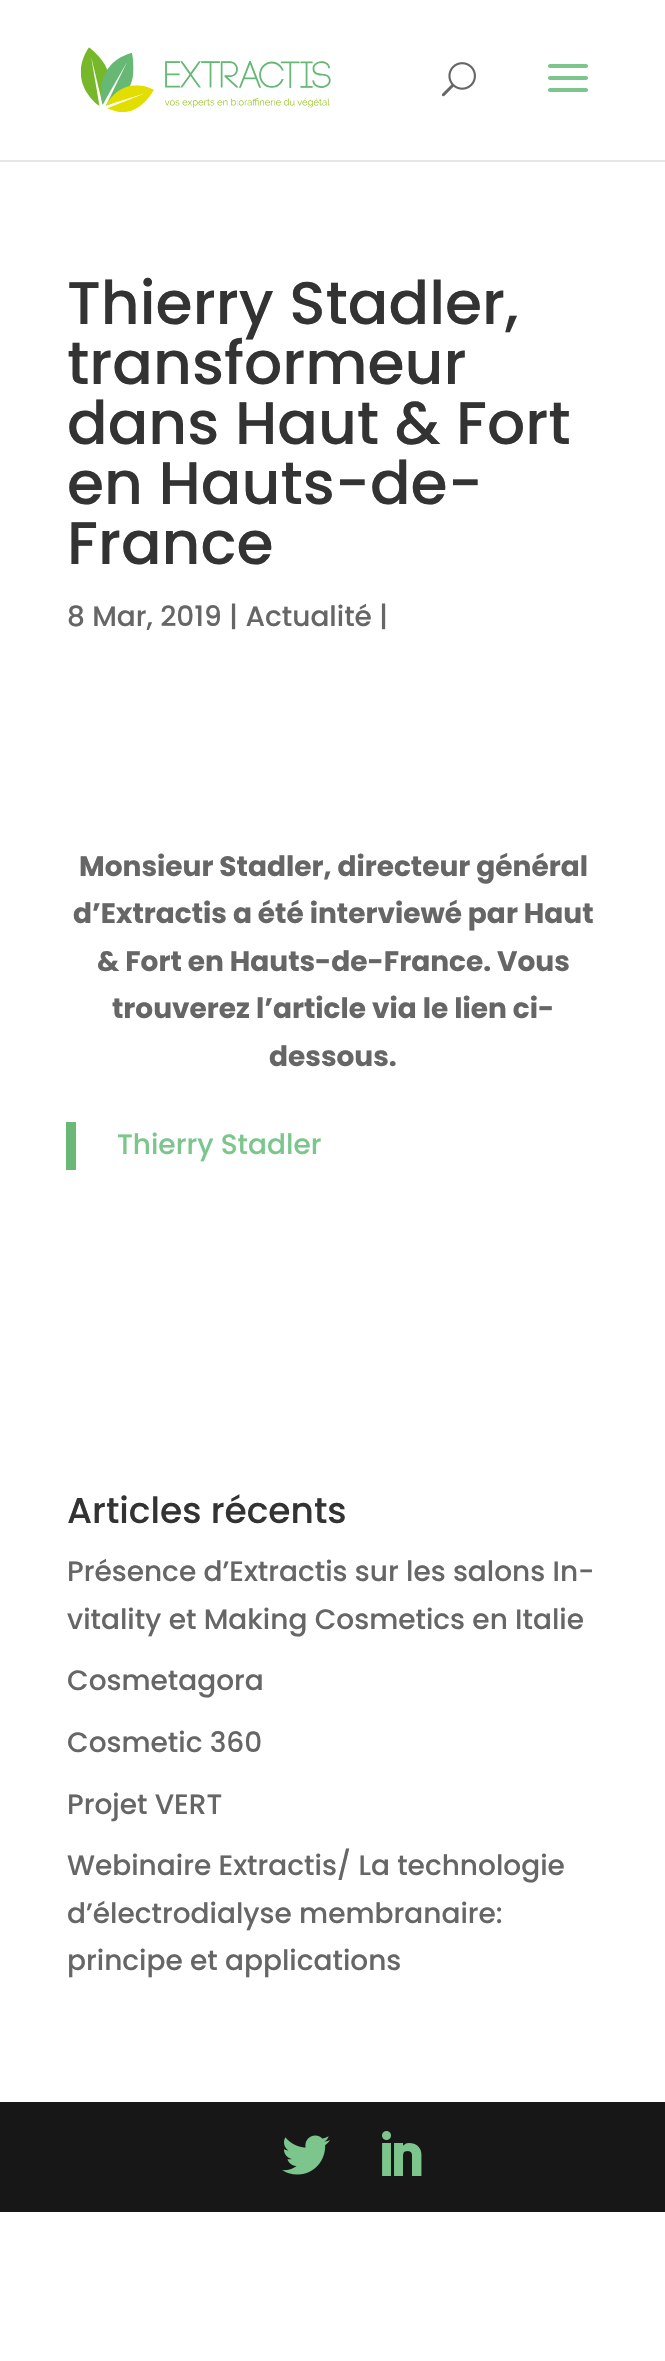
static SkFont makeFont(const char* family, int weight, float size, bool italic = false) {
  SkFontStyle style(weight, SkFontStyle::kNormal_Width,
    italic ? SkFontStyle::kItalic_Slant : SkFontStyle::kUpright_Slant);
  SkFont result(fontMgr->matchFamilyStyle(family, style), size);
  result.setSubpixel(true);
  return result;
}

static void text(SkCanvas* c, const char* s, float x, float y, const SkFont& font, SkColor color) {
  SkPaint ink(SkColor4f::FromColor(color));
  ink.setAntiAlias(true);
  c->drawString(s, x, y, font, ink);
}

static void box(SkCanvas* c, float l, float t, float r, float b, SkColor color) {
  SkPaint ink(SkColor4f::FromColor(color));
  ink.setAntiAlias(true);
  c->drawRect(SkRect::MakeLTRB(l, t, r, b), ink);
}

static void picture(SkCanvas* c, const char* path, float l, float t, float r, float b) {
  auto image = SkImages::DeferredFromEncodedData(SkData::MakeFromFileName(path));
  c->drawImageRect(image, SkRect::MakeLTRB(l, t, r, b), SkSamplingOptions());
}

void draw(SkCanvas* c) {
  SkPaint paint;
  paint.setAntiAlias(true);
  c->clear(0xffffffff);
  box(c, 0, 160, 665, 162, 0xffe6e6e6);
  picture(c, "img_01.png", 80, 47, 331, 113);
  picture(c, "img_02.png", 441, 62, 476, 97);
  picture(c, "img_03.png", 548, 64, 588, 92);
  SkFont face1 = makeFont("Poppins", 500, 60);
  text(c, "Thierry Stadler,", 67, 324, face1, 0xff333333);
  text(c, "transformeur", 67, 384, face1, 0xff333333);
  text(c, "dans Haut & Fort", 67, 444, face1, 0xff333333);
  text(c, "en Hauts-de-", 67, 504, face1, 0xff333333);
  text(c, "France", 67, 564, face1, 0xff333333);
  SkFont face2 = makeFont("Poppins", 500, 28);
  text(c, "8 Mar, 2019 | Actualité |", 67, 626, face2, 0xff666666);
  SkFont face3 = makeFont("Poppins", 700, 28);
  text(c, "Monsieur Stadler, directeur général", 79, 876, face3, 0xff666666);
  text(c, "d’Extractis a été interviewé par Haut", 73, 923, face3, 0xff666666);
  text(c, "& Fort en Hauts-de-France. Vous", 97, 971, face3, 0xff666666);
  text(c, "trouverez l’article via le lien ci-", 112, 1018, face3, 0xff666666);
  text(c, "dessous.", 269, 1066, face3, 0xff666666);
  box(c, 66, 1122, 76, 1170, 0xff6ab778);
  text(c, "Thierry Stadler", 117, 1154, face2, 0xff7cc68d);
  SkFont face4 = makeFont("Poppins", 500, 36);
  text(c, "Articles récents", 67, 1523, face4, 0xff333333);
  text(c, "Présence d’Extractis sur les salons In-", 67, 1581, face2, 0xff666666);
  text(c, "vitality et Making Cosmetics en Italie", 67, 1629, face2, 0xff666666);
  text(c, "Cosmetagora", 67, 1690, face2, 0xff666666);
  text(c, "Cosmetic 360", 67, 1752, face2, 0xff666666);
  text(c, "Projet VERT", 67, 1814, face2, 0xff666666);
  text(c, "Webinaire Extractis/ La technologie", 67, 1875, face2, 0xff666666);
  text(c, "d’électrodialyse membranaire:", 67, 1923, face2, 0xff666666);
  text(c, "principe et applications", 67, 1970, face2, 0xff666666);
  box(c, 0, 2102, 665, 2212, 0xff171717);
  picture(c, "img_04.png", 282, 2135, 330, 2175);
  picture(c, "img_05.png", 382, 2131, 422, 2176);
}
